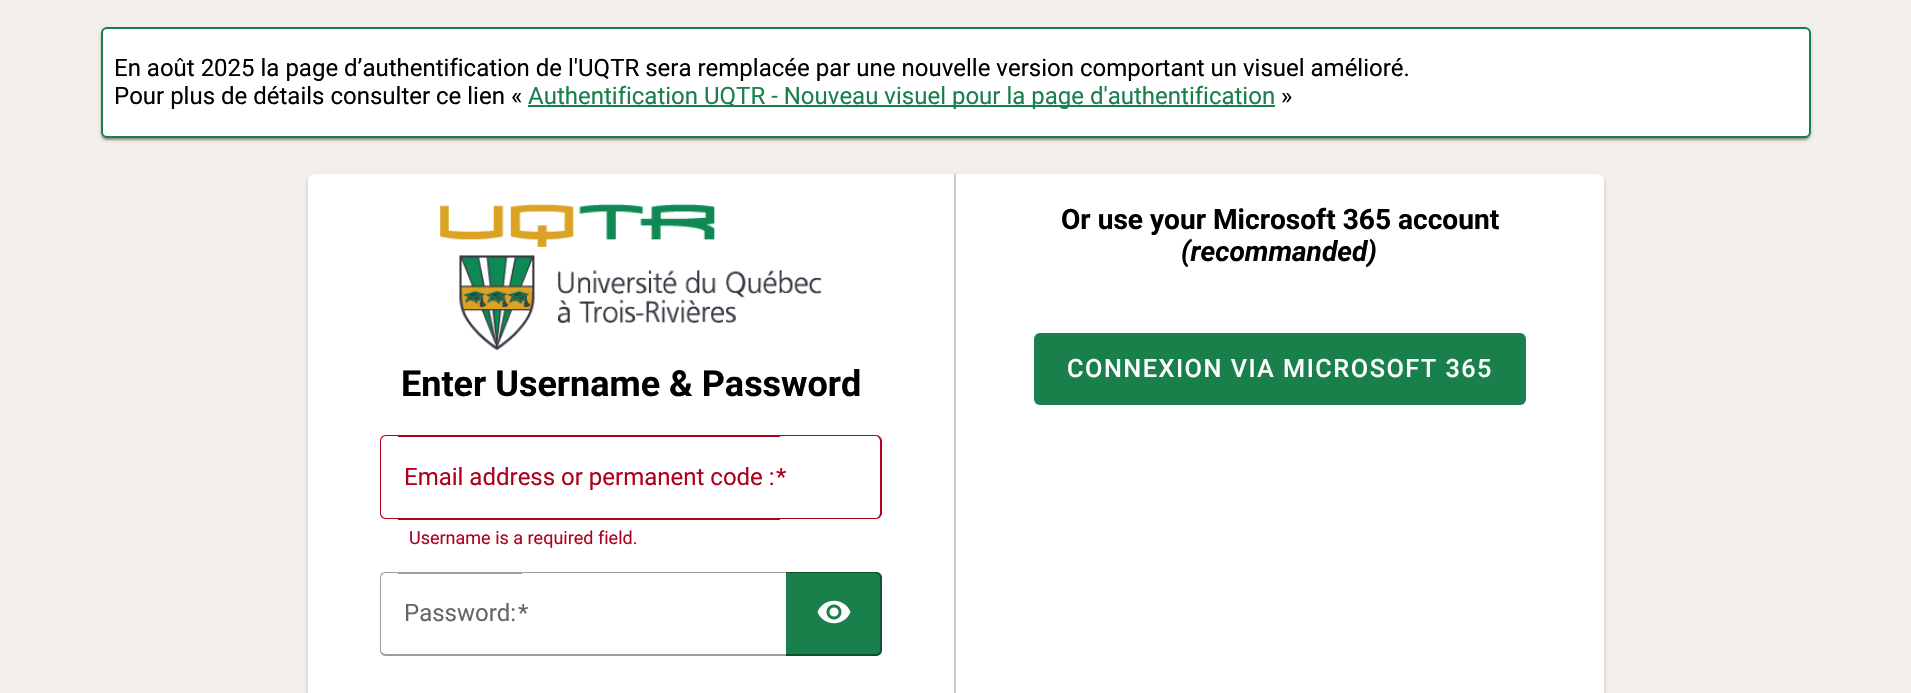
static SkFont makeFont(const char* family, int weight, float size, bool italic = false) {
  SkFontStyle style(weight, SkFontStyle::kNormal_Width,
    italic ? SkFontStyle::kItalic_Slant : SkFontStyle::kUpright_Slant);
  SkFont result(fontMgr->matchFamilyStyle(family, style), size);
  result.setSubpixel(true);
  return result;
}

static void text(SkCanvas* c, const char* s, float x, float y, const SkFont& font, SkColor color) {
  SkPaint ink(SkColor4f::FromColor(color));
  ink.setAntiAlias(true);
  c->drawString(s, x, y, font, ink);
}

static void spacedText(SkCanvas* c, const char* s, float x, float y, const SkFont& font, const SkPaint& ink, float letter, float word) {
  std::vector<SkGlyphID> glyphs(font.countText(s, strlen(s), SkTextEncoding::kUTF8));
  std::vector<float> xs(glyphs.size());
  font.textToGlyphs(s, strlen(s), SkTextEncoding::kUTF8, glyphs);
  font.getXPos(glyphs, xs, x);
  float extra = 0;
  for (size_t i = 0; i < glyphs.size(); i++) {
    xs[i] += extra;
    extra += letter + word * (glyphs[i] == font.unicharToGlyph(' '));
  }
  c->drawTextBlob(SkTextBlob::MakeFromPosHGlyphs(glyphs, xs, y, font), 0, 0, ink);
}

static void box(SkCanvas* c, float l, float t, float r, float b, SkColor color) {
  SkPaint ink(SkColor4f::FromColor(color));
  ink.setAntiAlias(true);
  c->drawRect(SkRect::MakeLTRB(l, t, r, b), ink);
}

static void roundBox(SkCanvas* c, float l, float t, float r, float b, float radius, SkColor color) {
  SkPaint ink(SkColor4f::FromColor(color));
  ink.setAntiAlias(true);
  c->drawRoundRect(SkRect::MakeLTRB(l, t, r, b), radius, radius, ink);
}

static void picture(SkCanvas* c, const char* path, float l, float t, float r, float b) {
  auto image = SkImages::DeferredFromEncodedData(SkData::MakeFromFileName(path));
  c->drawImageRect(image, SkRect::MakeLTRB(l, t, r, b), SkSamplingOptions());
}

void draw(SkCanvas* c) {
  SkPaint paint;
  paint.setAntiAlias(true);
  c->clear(0xfff3f0eb);
  paint.setColor(0x1f000000);
  paint.setMaskFilter(SkMaskFilter::MakeBlur(kNormal_SkBlurStyle, 2));
  c->drawRoundRect(SkRect::MakeLTRB(101, 29, 1811, 140), 6, 6, paint);
  paint.setMaskFilter(nullptr);
  paint.setColor(0x24000000);
  paint.setMaskFilter(SkMaskFilter::MakeBlur(kNormal_SkBlurStyle, 1));
  c->drawRoundRect(SkRect::MakeLTRB(101, 29, 1811, 140), 6, 6, paint);
  paint.setMaskFilter(nullptr);
  paint.setColor(0x33000000);
  paint.setMaskFilter(SkMaskFilter::MakeBlur(kNormal_SkBlurStyle, 1));
  c->drawRoundRect(SkRect::MakeLTRB(102, 32, 1809, 140), 5, 5, paint);
  paint.setMaskFilter(nullptr);
  paint.setColor(0xffffffff);
  c->drawRoundRect(SkRect::MakeLTRB(102, 28, 1810, 137), 5, 5, paint);
  paint.setStyle(SkPaint::kStroke_Style);
  paint.setStrokeWidth(2);
  paint.setColor(0xff197f4b);
  c->drawRoundRect(SkRect::MakeLTRB(102, 28, 1810, 137), 5, 5, paint);
  SkFont face1 = makeFont("Roboto", 400, 24);
  text(c, "En août 2025 la page d’authentification de l'UQTR sera remplacée par une nouvelle version comportant un visuel amélioré.", 114, 76, face1, 0xff000000);
  text(c, "Pour plus de détails consulter ce lien «", 114, 104, face1, 0xff000000);
  box(c, 528, 105, 1275, 107, 0xff197f4b);
  text(c, "Authentification UQTR - Nouveau visuel pour la page d'authentification", 528, 104, face1, 0xff197f4b);
  text(c, "»", 1281, 104, face1, 0xff000000);
  paint.setStyle(SkPaint::kFill_Style);
  paint.setColor(0x1f000000);
  paint.setMaskFilter(SkMaskFilter::MakeBlur(kNormal_SkBlurStyle, 2));
  c->drawRoundRect(SkRect::MakeLTRB(308, 176, 1604, 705), 6, 6, paint);
  paint.setMaskFilter(nullptr);
  paint.setColor(0x24000000);
  paint.setMaskFilter(SkMaskFilter::MakeBlur(kNormal_SkBlurStyle, 1));
  c->drawRoundRect(SkRect::MakeLTRB(308, 176, 1604, 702), 6, 6, paint);
  paint.setMaskFilter(nullptr);
  paint.setColor(0xffffffff);
  c->drawPath(SkPathBuilder().moveTo(314, 174).lineTo(1598, 174).cubicTo(1601.5f, 174, 1604, 176.5f, 1604, 180).lineTo(1604, 693).lineTo(308, 693).lineTo(308, 180).cubicTo(308, 176.5f, 310.5f, 174, 314, 174).close().detach(), paint);
  SkFont face2 = makeFont("Roboto", 700, 28.1f);
  text(c, "Or use your Microsoft 365 account", 1061, 229, face2, 0xff000000);
  SkFont face3 = makeFont("Roboto", 700, 28.1f, true);
  text(c, "(recommanded)", 1181, 261, face3, 0xff000000);
  roundBox(c, 1034, 333, 1526, 405, 6, 0xff197f4b);
  SkFont face4 = makeFont("Roboto", 500, 25.25f);
  spacedText(c, "CONNEXION VIA MICROSOFT 365", 1067, 377, face4, paint, 1.5f, 0);
  box(c, 954, 174, 956, 693, 0xffcccccc);
  picture(c, "img_01.png", 440, 204, 822, 350);
  SkFont face5 = makeFont("Roboto", 700, 36);
  text(c, "Enter Username & Password", 401, 396, face5, 0xff000000);
  paint.setColor(0xffb00020);
  c->drawPath(SkPathBuilder(SkPathFillType::kEvenOdd).moveTo(386, 435).lineTo(398, 435).lineTo(398, 519).lineTo(386, 519).cubicTo(382, 519, 380, 516, 380, 513).lineTo(380, 441).cubicTo(380, 438, 382, 435, 386, 435).close().moveTo(386, 436).lineTo(398, 436).lineTo(398, 518).lineTo(386, 518).cubicTo(383, 518, 381, 515, 381, 513).lineTo(381, 441).cubicTo(381, 439, 383, 436, 386, 436).close().detach(), paint);
  box(c, 398, 435, 780, 437, 0xffb00020);
  box(c, 398, 518, 780, 520, 0xffb00020);
  text(c, "Email address or permanent code :", 404, 485, face1, 0xffb00020);
  c->drawPath(SkPathBuilder(SkPathFillType::kEvenOdd).moveTo(780, 435).lineTo(876, 435).cubicTo(879, 435, 882, 438, 882, 441).lineTo(882, 513).cubicTo(882, 516, 879, 519, 876, 519).lineTo(780, 519).close().moveTo(780, 436).lineTo(876, 436).cubicTo(878, 436, 880, 439, 880, 441).lineTo(880, 513).cubicTo(880, 515, 878, 518, 876, 518).lineTo(780, 518).close().detach(), paint);
  text(c, "*", 776, 485, face1, 0xffb00020);
  SkFont face6 = makeFont("Roboto", 400, 18);
  text(c, "Username is a required field.", 409, 544, face6, 0xffb00020);
  paint.setColor(0xff9e9e9e);
  c->drawPath(SkPathBuilder(SkPathFillType::kEvenOdd).moveTo(386, 572).lineTo(398, 572).lineTo(398, 656).lineTo(386, 656).cubicTo(382, 656, 380, 653, 380, 650).lineTo(380, 578).cubicTo(380, 574, 382, 572, 386, 572).close().moveTo(386, 573).lineTo(398, 573).lineTo(398, 654).lineTo(386, 654).cubicTo(383, 654, 381, 652, 381, 650).lineTo(381, 578).cubicTo(381, 575, 383, 573, 386, 573).close().detach(), paint);
  box(c, 398, 572, 522, 574, 0xff9e9e9e);
  box(c, 398, 654, 522, 656, 0xff9e9e9e);
  text(c, "Password:", 404, 621, face1, 0xff666666);
  paint.setColor(0xff197f4b);
  c->drawPath(SkPathBuilder().moveTo(786, 572).lineTo(876, 572).cubicTo(879.5f, 572, 882, 574.5f, 882, 578).lineTo(882, 650).cubicTo(882, 653.5f, 879.5f, 656, 876, 656).lineTo(786, 656).close().detach(), paint);
  picture(c, "img_02.png", 817, 600, 851, 624);
  paint.setColor(0x61000000);
  c->drawPath(SkPathBuilder(SkPathFillType::kEvenOdd).moveTo(522, 572).lineTo(876, 572).cubicTo(879, 572, 882, 574, 882, 578).lineTo(882, 650).cubicTo(882, 653, 879, 656, 876, 656).lineTo(522, 656).close().moveTo(522, 573).lineTo(876, 573).cubicTo(878, 573, 880, 575, 880, 578).lineTo(880, 650).cubicTo(880, 652, 878, 654, 876, 654).lineTo(522, 654).close().detach(), paint);
  text(c, "*", 518, 621, face1, 0xff666666);
}
